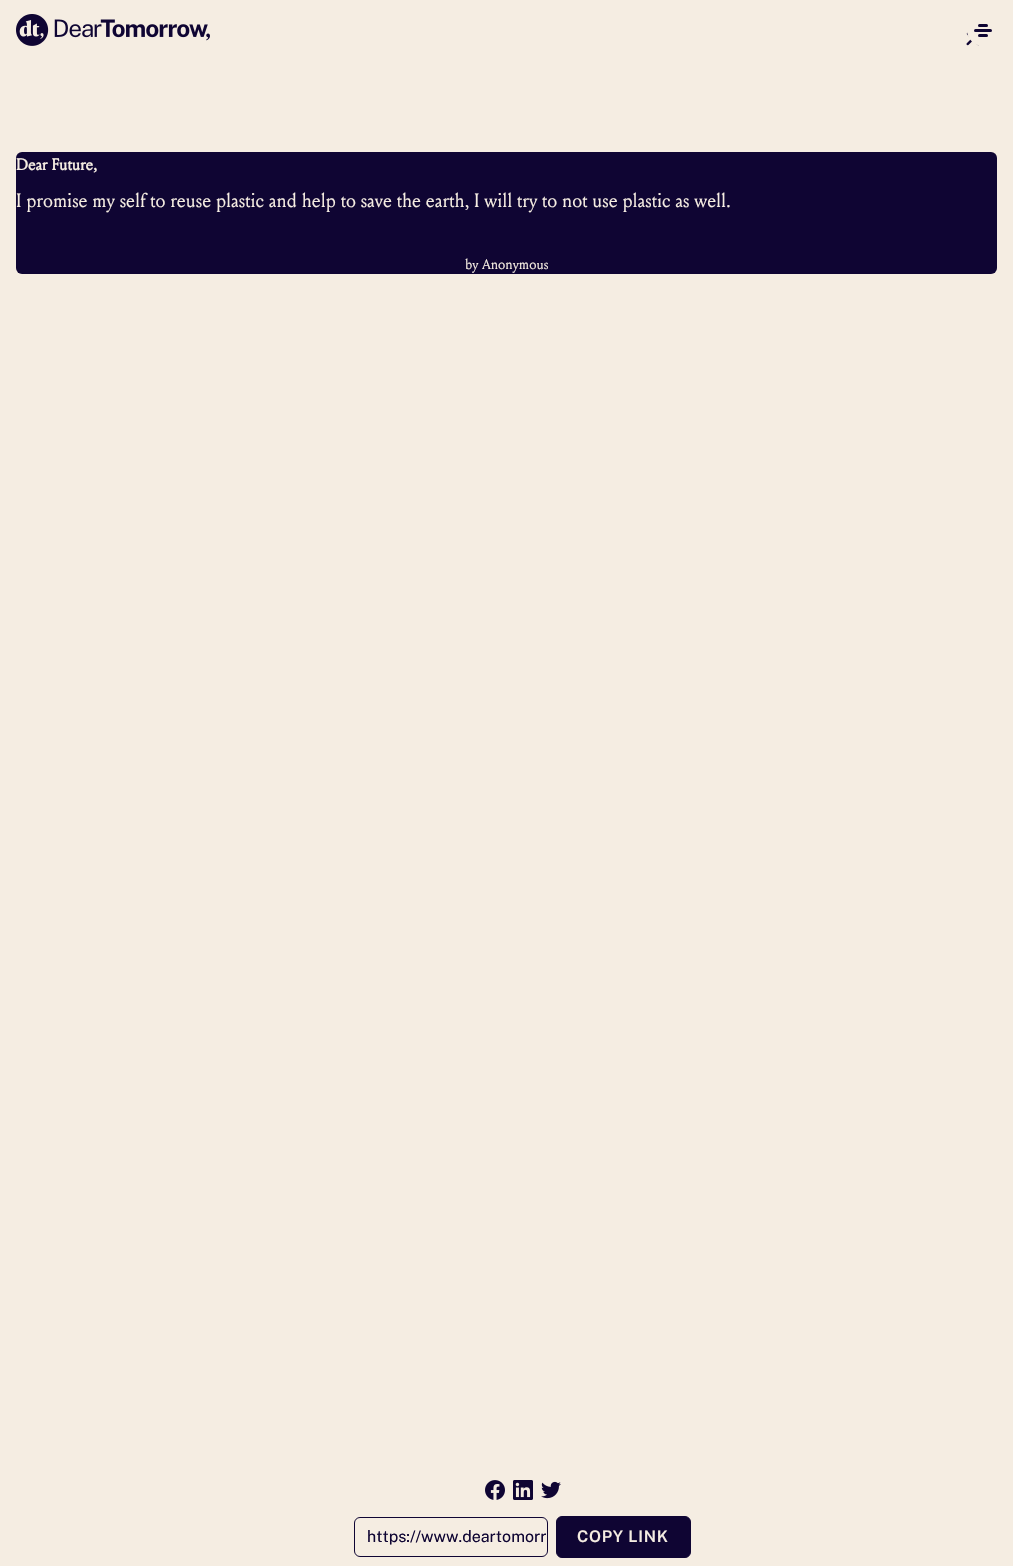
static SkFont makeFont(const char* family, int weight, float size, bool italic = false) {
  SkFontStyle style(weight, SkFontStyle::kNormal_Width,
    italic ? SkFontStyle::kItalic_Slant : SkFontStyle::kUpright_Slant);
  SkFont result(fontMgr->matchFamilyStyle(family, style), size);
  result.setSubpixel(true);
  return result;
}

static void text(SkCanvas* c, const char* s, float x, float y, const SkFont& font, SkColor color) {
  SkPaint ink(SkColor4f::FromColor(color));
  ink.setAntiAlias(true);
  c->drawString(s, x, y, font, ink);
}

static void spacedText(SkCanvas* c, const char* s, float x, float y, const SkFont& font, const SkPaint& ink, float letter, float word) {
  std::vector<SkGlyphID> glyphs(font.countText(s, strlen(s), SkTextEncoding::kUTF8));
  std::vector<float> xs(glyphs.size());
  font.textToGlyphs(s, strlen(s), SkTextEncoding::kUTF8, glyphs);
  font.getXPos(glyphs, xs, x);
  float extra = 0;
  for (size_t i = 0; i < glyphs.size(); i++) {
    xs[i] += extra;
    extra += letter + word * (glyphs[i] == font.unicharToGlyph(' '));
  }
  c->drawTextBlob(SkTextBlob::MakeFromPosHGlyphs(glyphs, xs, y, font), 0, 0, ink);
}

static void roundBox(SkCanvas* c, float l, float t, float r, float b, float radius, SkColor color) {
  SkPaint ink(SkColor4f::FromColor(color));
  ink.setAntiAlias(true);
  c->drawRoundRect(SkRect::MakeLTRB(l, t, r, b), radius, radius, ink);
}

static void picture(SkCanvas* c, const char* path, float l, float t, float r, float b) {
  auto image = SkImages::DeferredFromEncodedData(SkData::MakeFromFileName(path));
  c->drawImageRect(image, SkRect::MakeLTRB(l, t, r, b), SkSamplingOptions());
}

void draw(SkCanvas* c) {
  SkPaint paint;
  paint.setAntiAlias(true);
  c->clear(0xfff5ede2);
  picture(c, "img_01.png", 16, 14, 210, 46);
  picture(c, "img_02.png", 966, 32, 979, 46);
  paint.setColor(0xfff5ede2);
  c->drawCircle(983, 30, 16, paint);
  roundBox(c, 978, 24, 988, 27, 1.5f, 0xff0f0533);
  roundBox(c, 974, 29, 992, 32, 1.5f, 0xff0f0533);
  roundBox(c, 978, 34, 988, 37, 1.5f, 0xff0f0533);
  roundBox(c, 16, 152, 997, 274, 6, 0xff0f0533);
  SkFont face1 = makeFont("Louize", 700, 16);
  text(c, "Dear Future,", 16, 170, face1, 0xfff5ede2);
  SkFont face2 = makeFont("Louize", 400, 19.2f);
  text(c, "I promise my self to reuse plastic and help to save the earth, I will try to not use plastic as well.", 16, 207, face2, 0xfff5ede2);
  SkFont face3 = makeFont("Louize", 400, 14);
  text(c, "by Anonymous", 465, 269, face3, 0xfff5ede2);
  picture(c, "img_03.png", 485, 1480, 505, 1500);
  picture(c, "img_04.png", 513, 1480, 533, 1500);
  picture(c, "img_05.png", 541, 1481, 561, 1499);
  paint.setStyle(SkPaint::kStroke_Style);
  paint.setStrokeWidth(1);
  paint.setColor(0xff0f0533);
  c->drawRoundRect(SkRect::MakeLTRB(354.5f, 1517.5f, 547.5f, 1556.5f), 5.5f, 5.5f, paint);
  SkFont face4 = makeFont("Public Sans", 400, 16);
  text(c, "https://www.deartomorr", 367, 1542, face4, 0xff0f0533);
  paint.setStyle(SkPaint::kFill_Style);
  c->drawRoundRect(SkRect::MakeLTRB(556.5f, 1516.5f, 690.5f, 1557.5f), 5.5f, 5.5f, paint);
  paint.setStyle(SkPaint::kStroke_Style);
  c->drawRoundRect(SkRect::MakeLTRB(556.5f, 1516.5f, 690.5f, 1557.5f), 5.5f, 5.5f, paint);
  SkFont face5 = makeFont("Public Sans", 600, 16);
  paint.setStyle(SkPaint::kFill_Style);
  paint.setColor(0xfff5ede2);
  spacedText(c, "COPY LINK", 577, 1542, face5, paint, 0.75f, 0);
}
